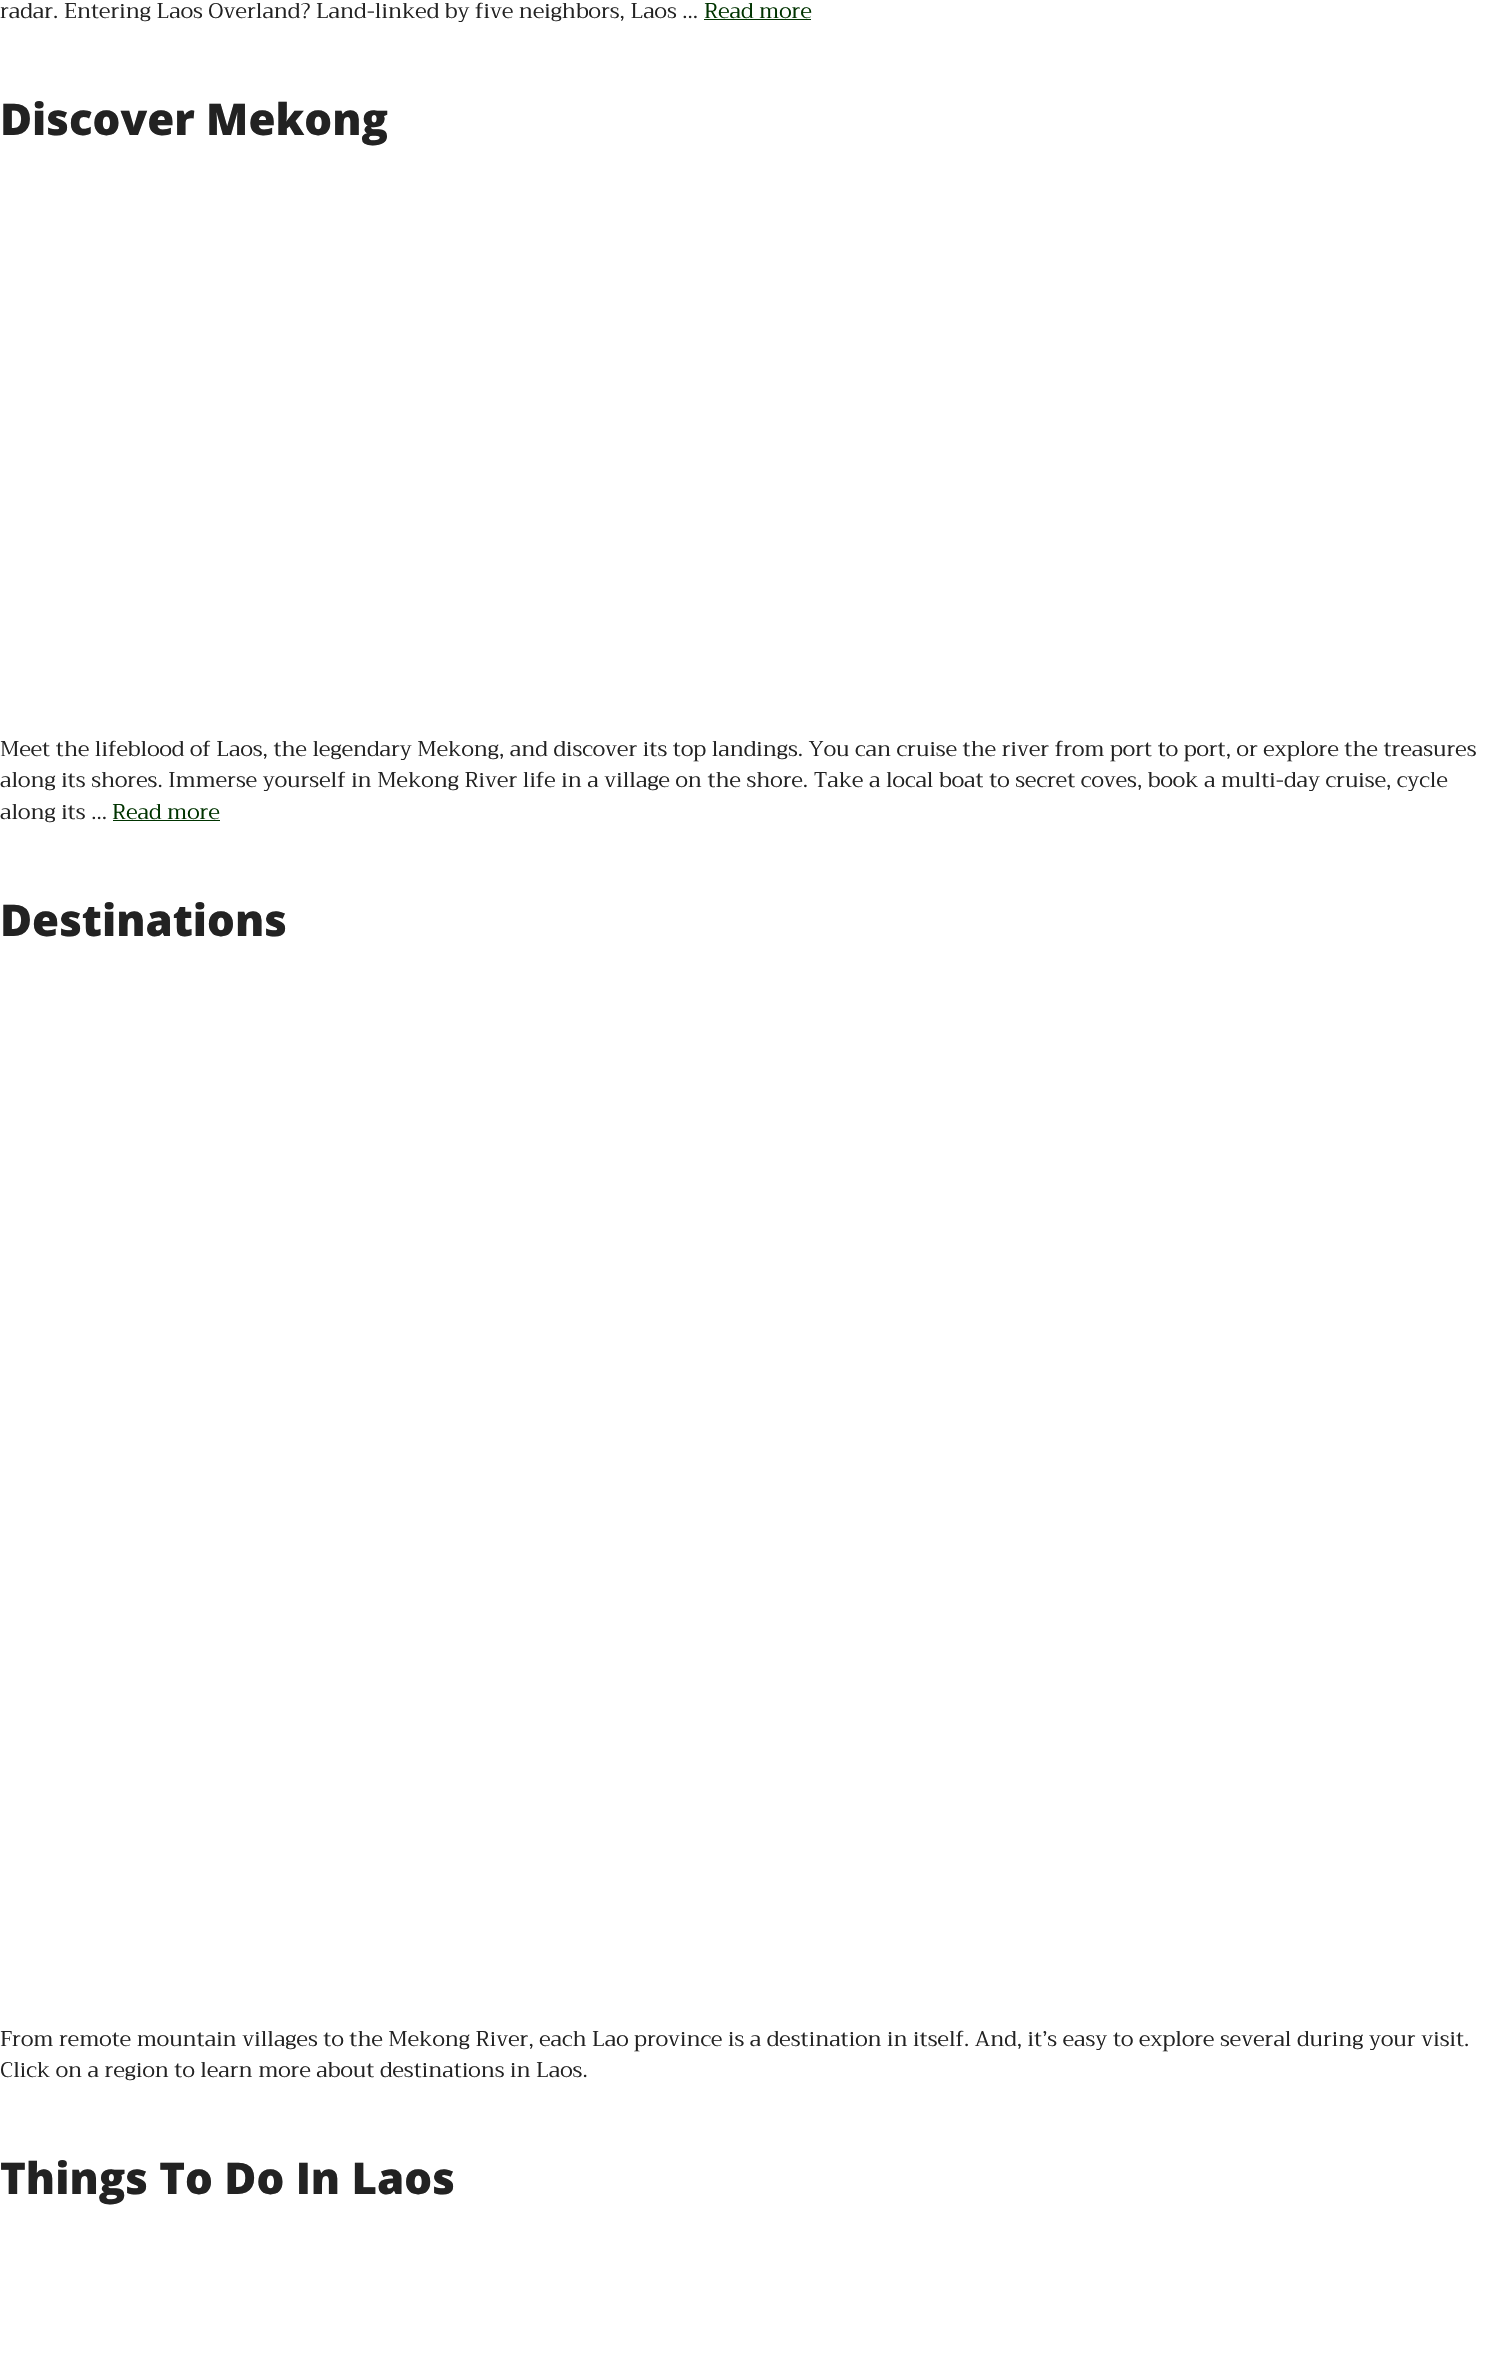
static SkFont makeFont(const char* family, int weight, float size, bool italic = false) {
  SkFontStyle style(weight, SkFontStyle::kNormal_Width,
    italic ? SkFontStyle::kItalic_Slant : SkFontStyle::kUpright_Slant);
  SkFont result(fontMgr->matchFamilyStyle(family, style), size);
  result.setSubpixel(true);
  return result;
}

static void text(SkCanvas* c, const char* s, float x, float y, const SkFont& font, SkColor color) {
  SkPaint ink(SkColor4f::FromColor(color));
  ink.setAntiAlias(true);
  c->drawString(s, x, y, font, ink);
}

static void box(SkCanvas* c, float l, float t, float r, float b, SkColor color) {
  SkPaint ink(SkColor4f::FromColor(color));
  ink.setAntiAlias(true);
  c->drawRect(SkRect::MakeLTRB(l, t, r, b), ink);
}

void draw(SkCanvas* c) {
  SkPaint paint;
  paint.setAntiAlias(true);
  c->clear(0xffffffff);
  SkFont face1 = makeFont("Trirong", 400, 21.25f);
  text(c, "radar. Entering Laos Overland? Land-linked by five neighbors, Laos …", 0, 18, face1, 0xff222222);
  text(c, "Read more", 704, 18, face1, 0xff003300);
  box(c, 704, 19, 811, 20, 0xff003300);
  SkFont face2 = makeFont("Open Sans", 800, 43.75f);
  text(c, "Discover Mekong", 0, 135, face2, 0xff222222);
  text(c, "Meet the lifeblood of Laos, the legendary Mekong, and discover its top landings. You can cruise the river from port to port, or explore the treasures", 0, 756, face1, 0xff222222);
  text(c, "along its shores. Immerse yourself in Mekong River life in a village on the shore. Take a local boat to secret coves, book a multi-day cruise, cycle", 0, 787, face1, 0xff222222);
  text(c, "along its …", 0, 819, face1, 0xff222222);
  text(c, "Read more", 112, 819, face1, 0xff003300);
  box(c, 113, 820, 220, 821, 0xff003300);
  text(c, "Destinations", 0, 936, face2, 0xff222222);
  text(c, "From remote mountain villages to the Mekong River, each Lao province is a destination in itself. And, it’s easy to explore several during your visit.", 0, 2046, face1, 0xff222222);
  text(c, "Click on a region to learn more about destinations in Laos.", 0, 2077, face1, 0xff222222);
  text(c, "Things To Do In Laos", 0, 2194, face2, 0xff222222);
}
